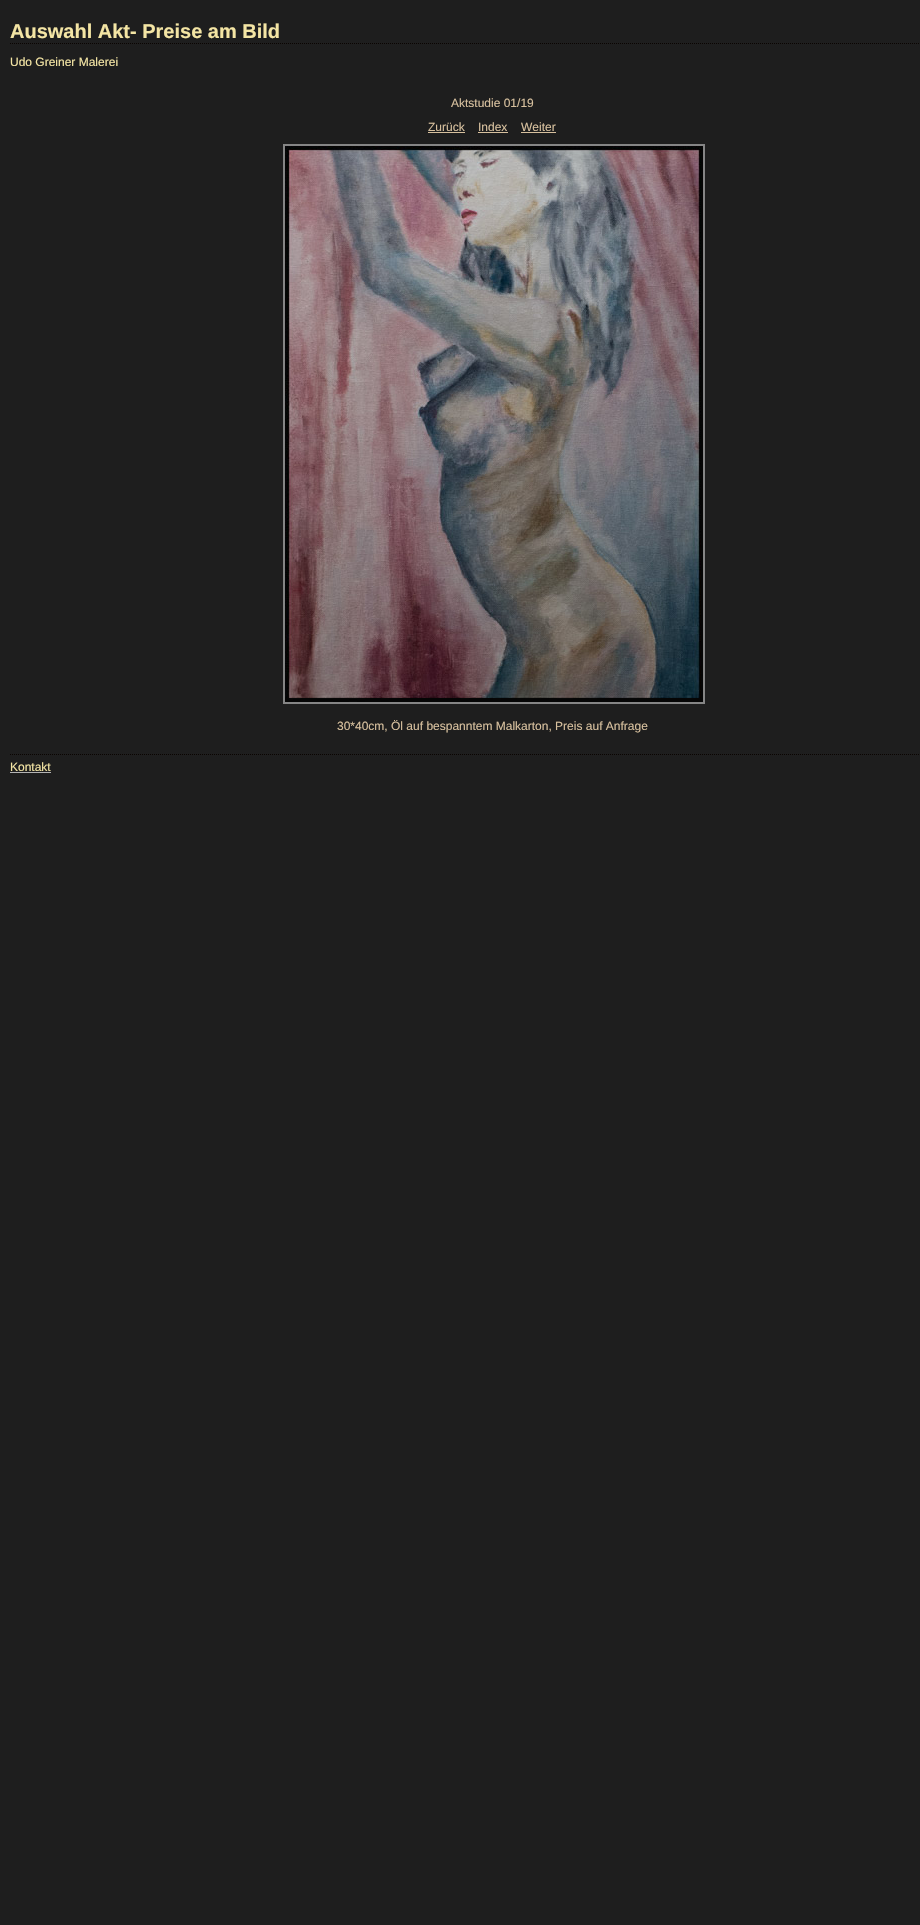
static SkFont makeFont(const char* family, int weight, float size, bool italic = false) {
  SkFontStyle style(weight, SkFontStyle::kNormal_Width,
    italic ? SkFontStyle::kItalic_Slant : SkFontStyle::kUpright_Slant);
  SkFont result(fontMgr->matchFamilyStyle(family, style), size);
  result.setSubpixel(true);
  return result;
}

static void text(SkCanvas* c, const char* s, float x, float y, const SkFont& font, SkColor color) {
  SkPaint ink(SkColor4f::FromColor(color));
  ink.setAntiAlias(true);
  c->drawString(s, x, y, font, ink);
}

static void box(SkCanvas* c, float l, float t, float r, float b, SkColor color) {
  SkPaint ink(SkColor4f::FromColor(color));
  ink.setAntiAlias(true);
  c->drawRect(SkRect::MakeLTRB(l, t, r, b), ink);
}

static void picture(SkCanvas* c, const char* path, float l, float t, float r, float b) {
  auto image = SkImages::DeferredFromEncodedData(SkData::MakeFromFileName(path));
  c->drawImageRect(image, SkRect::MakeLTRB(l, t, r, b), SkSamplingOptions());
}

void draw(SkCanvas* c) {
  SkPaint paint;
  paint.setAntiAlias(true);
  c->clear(0xff1e1e1e);
  paint.setStyle(SkPaint::kStroke_Style);
  paint.setStrokeWidth(1);
  paint.setColor(0xff0a0401);
  paint.setPathEffect(SkDashPathEffect::Make({{1, 1}}, 0));
  c->drawPath(SkPathBuilder().moveTo(10, 43.5f).lineTo(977, 43.5f).detach(), paint);
  paint.setPathEffect(nullptr);
  SkFont face1 = makeFont("Liberation Sans", 700, 20);
  text(c, "Auswahl Akt- Preise am Bild", 10, 38, face1, 0xfff4e5a4);
  SkFont face2 = makeFont("Liberation Sans", 400, 12);
  text(c, "Udo Greiner Malerei", 10, 66, face2, 0xfff4e5a4);
  paint.setPathEffect(SkDashPathEffect::Make({{1, 1}}, 0));
  c->drawPath(SkPathBuilder().moveTo(10, 754.5f).lineTo(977, 754.5f).detach(), paint);
  paint.setPathEffect(nullptr);
  text(c, "Aktstudie 01/19", 451, 107, face2, 0xffd7c09e);
  text(c, "Zurück", 428, 131, face2, 0xffd7c09e);
  box(c, 428, 132, 465, 133, 0xffd7c09e);
  text(c, "Index", 478, 131, face2, 0xffd7c09e);
  box(c, 478, 132, 508, 133, 0xffd7c09e);
  text(c, "Weiter", 521, 131, face2, 0xffd7c09e);
  box(c, 521, 132, 556, 133, 0xffd7c09e);
  paint.setStrokeWidth(2);
  paint.setColor(0xff858585);
  c->drawRect(SkRect::MakeLTRB(284, 145, 704, 703), paint);
  picture(c, "img_01.png", 285, 146, 703, 702);
  text(c, "30*40cm, Öl auf bespanntem Malkarton, Preis auf Anfrage", 337, 730, face2, 0xffd7c09e);
  text(c, "Kontakt", 10, 771, face2, 0xfff4e5a4);
  box(c, 10, 772, 51, 773, 0xffb3b3b3);
}
